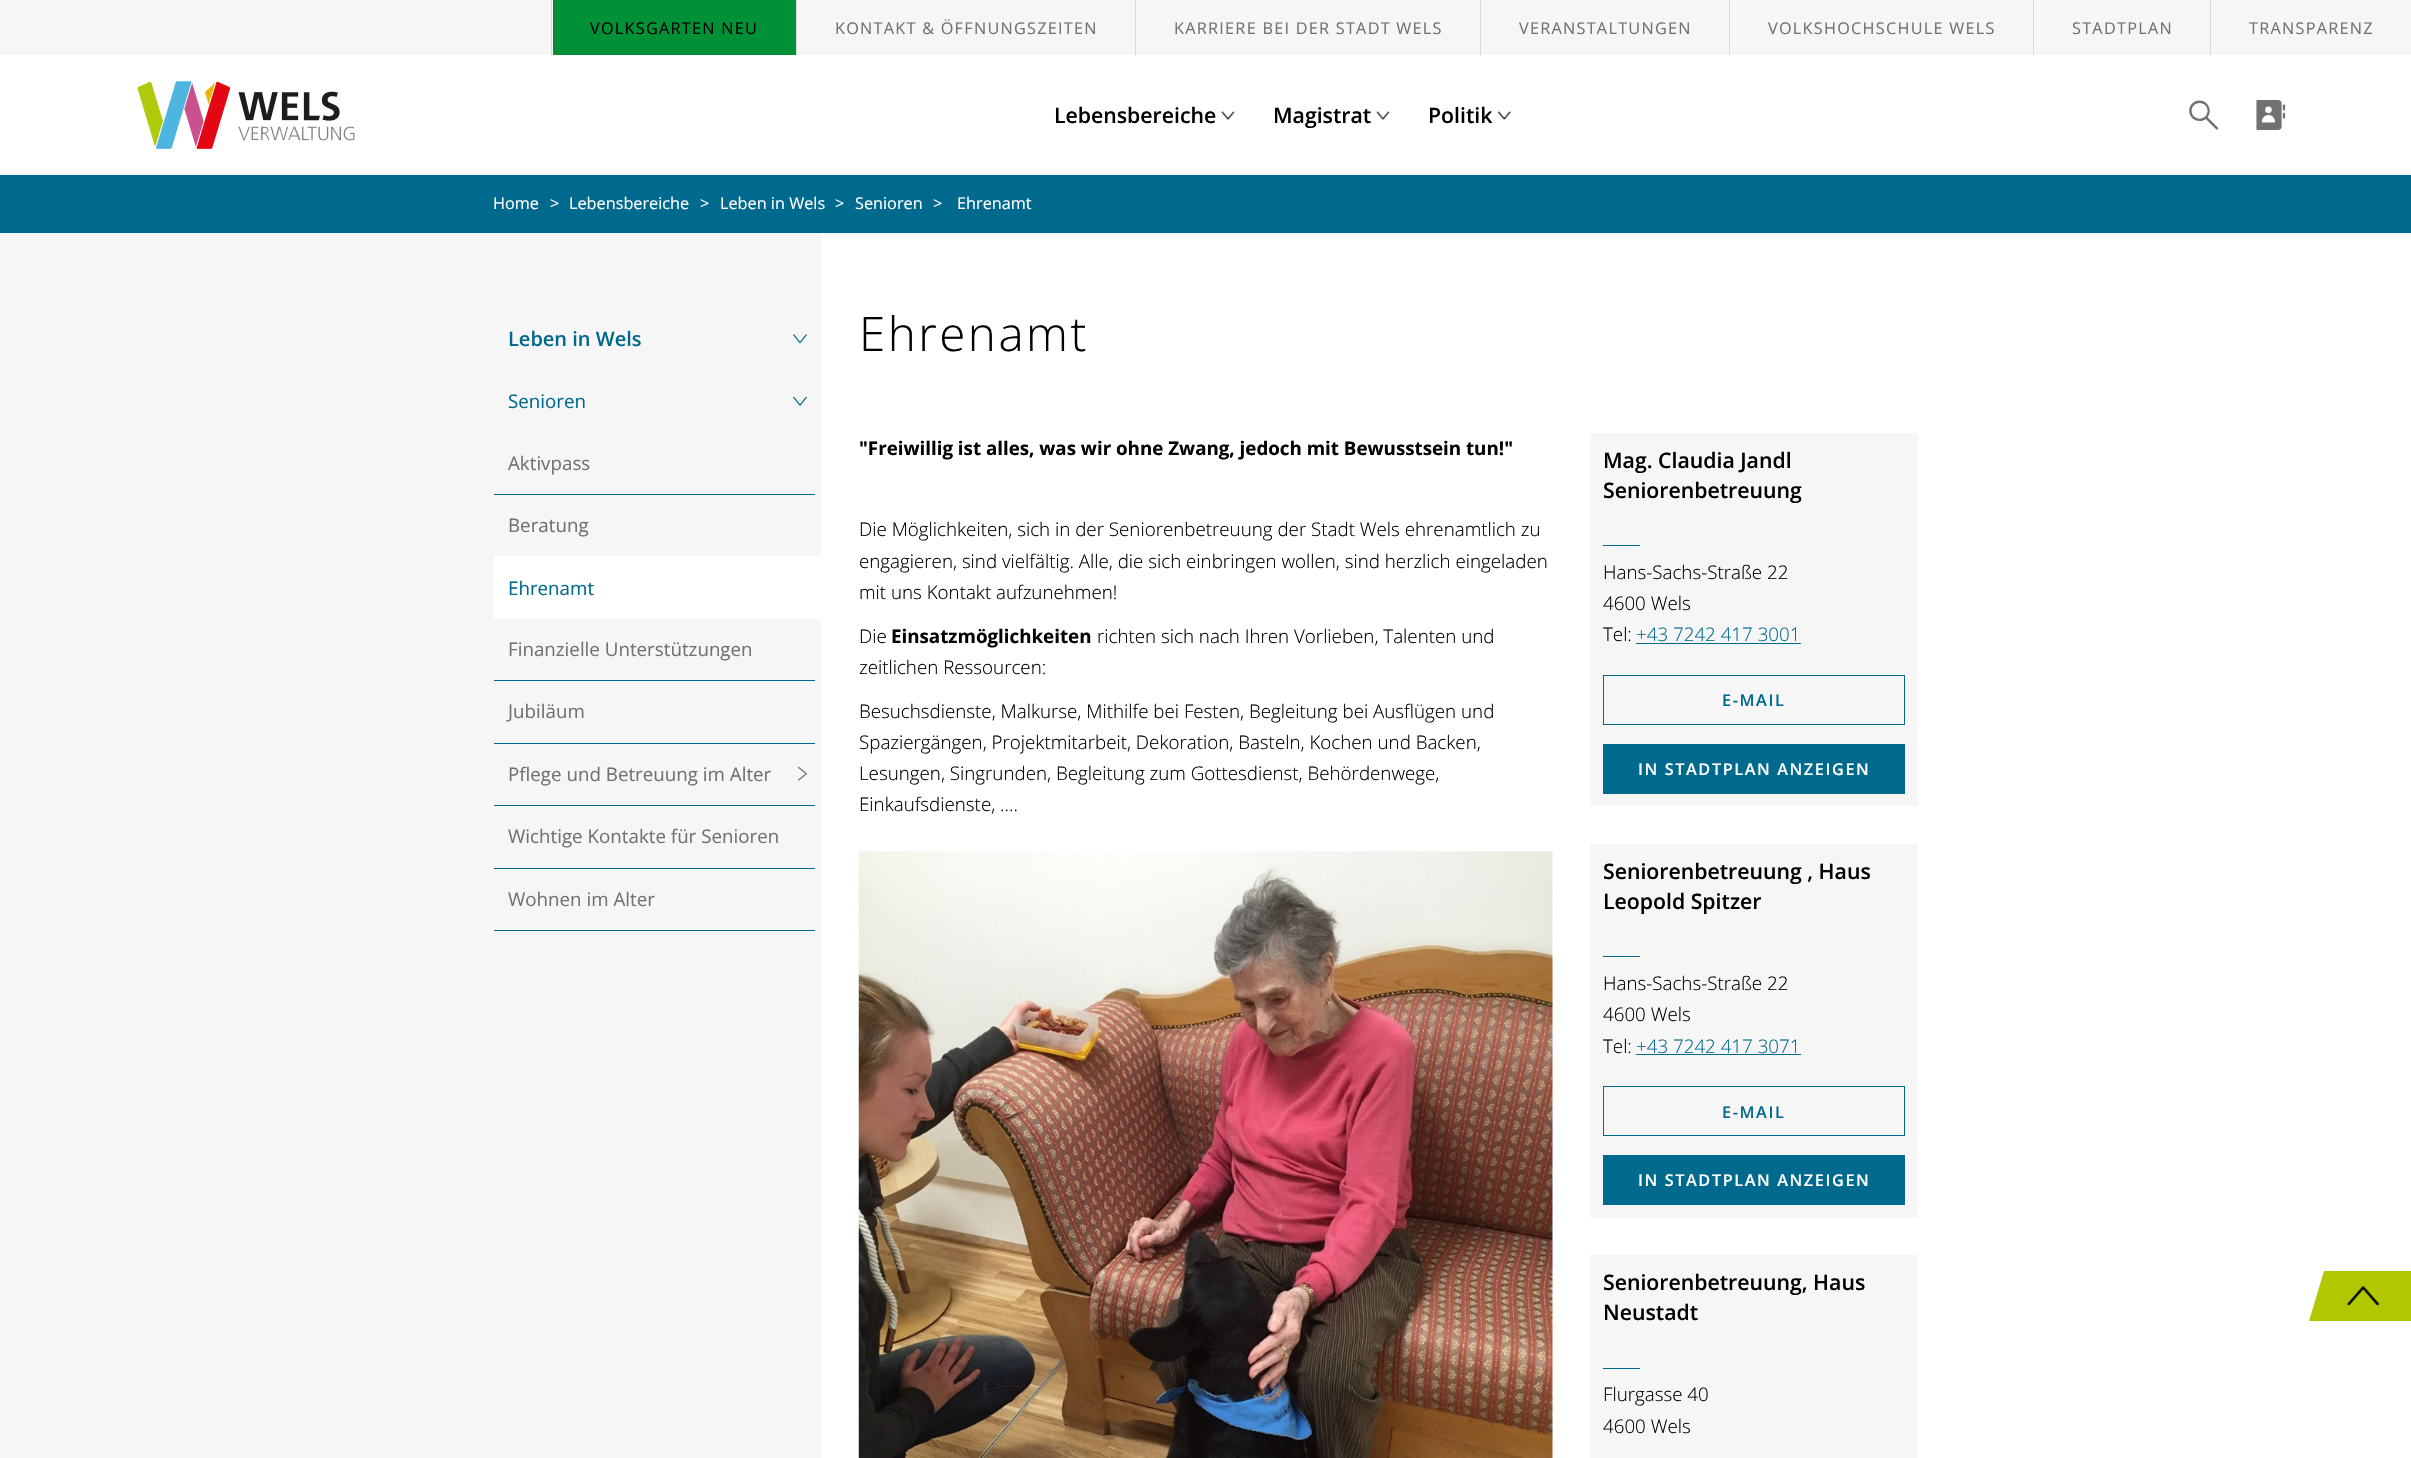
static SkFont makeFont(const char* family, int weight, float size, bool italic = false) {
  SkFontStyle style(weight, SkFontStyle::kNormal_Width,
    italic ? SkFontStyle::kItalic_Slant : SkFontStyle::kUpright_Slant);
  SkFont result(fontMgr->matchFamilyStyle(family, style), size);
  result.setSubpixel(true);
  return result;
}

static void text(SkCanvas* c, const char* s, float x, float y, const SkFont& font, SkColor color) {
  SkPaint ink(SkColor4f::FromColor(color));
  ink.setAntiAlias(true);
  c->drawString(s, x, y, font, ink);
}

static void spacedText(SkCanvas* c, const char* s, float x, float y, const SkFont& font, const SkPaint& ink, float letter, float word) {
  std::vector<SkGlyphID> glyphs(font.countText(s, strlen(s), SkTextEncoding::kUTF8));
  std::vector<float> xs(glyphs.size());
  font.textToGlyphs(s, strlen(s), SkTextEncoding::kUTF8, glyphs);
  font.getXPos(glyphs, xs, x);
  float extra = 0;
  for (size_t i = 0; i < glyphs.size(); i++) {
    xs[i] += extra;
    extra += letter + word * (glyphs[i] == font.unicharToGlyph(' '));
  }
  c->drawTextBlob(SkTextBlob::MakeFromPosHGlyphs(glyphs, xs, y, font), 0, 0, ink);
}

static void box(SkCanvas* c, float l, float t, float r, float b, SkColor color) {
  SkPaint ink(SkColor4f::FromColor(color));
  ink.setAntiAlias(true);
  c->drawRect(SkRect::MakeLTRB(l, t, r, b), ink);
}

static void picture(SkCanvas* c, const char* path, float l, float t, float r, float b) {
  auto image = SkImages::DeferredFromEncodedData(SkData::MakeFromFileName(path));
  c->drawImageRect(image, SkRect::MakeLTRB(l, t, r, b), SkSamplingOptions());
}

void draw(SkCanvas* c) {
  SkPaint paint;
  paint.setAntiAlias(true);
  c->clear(0xffffffff);
  box(c, 0, 0, 2411, 55, 0xfff6f6f6);
  box(c, 551, 0, 552, 55, 0xffdadada);
  box(c, 553, 0, 796, 55, 0xff009036);
  SkFont face1 = makeFont("Open Sans", 400, 16.25f);
  paint.setColor(0xff000000);
  spacedText(c, "VOLKSGARTEN NEU", 590, 34, face1, paint, 1.25f, 0);
  box(c, 796, 0, 797, 55, 0xffdadada);
  paint.setColor(0xff717073);
  spacedText(c, "KONTAKT & ÖFFNUNGSZEITEN", 835, 34, face1, paint, 1.25f, 0);
  box(c, 1135, 0, 1136, 55, 0xffdadada);
  spacedText(c, "KARRIERE BEI DER STADT WELS", 1174, 34, face1, paint, 1.25f, 0);
  box(c, 1480, 0, 1481, 55, 0xffdadada);
  spacedText(c, "VERANSTALTUNGEN", 1519, 34, face1, paint, 1.25f, 0);
  box(c, 1729, 0, 1730, 55, 0xffdadada);
  spacedText(c, "VOLKSHOCHSCHULE WELS", 1768, 34, face1, paint, 1.25f, 0);
  box(c, 2033, 0, 2034, 55, 0xffdadada);
  spacedText(c, "STADTPLAN", 2072, 34, face1, paint, 1.25f, 0);
  box(c, 2210, 0, 2211, 55, 0xffdadada);
  spacedText(c, "TRANSPARENZ", 2249, 34, face1, paint, 1.25f, 0);
  picture(c, "img_01.png", 137, 81, 355, 149);
  SkFont face2 = makeFont("Open Sans", 600, 21.25f);
  text(c, "Lebensbereiche", 1054, 123, face2, 0xff000000);
  picture(c, "img_02.png", 1221, 110, 1235, 120);
  text(c, "Magistrat", 1273, 123, face2, 0xff000000);
  picture(c, "img_03.png", 1376, 110, 1390, 120);
  text(c, "Politik", 1428, 123, face2, 0xff000000);
  picture(c, "img_04.png", 1497, 111, 1511, 120);
  picture(c, "img_05.png", 2189, 100, 2219, 130);
  picture(c, "img_06.png", 2256, 100, 2286, 130);
  box(c, 0, 175, 2411, 233, 0xff00698e);
  text(c, "Home", 493, 209, face1, 0xffffffff);
  text(c, ">", 550, 209, face1, 0xffffffff);
  text(c, "Lebensbereiche", 569, 209, face1, 0xffffffff);
  text(c, ">", 700, 209, face1, 0xffffffff);
  text(c, "Leben in Wels", 720, 209, face1, 0xffffffff);
  text(c, ">", 835, 209, face1, 0xffffffff);
  text(c, "Senioren", 855, 209, face1, 0xffffffff);
  text(c, ">", 933, 209, face1, 0xffffffff);
  text(c, "Ehrenamt", 957, 209, face1, 0xffffffff);
  {
    const SkColor colors[] = {0xfff6f6f6, 0xffffffff};
    const float stops[] = {0.45f, 0.55f};
    const SkPoint ends[] = {{0, 1398}, {2411, 1398}};
    paint.setShader(SkGradientShader::MakeLinear(ends, colors, stops, 2, SkTileMode::kClamp));
    paint.setAlpha(255);
  }
  c->drawRect(SkRect::MakeLTRB(0, 233, 1259, 1458), paint);
  box(c, 821, 233, 1259, 1458, 0xffffffff);
  SkFont face3 = makeFont("Open Sans", 600, 20);
  text(c, "Leben in Wels", 508, 346, face3, 0xff00698e);
  picture(c, "img_07.png", 793, 334, 807, 344);
  box(c, 494, 930, 815, 931, 0xff00698e);
  SkFont face4 = makeFont("Open Sans", 400, 18.75f);
  text(c, "Senioren", 508, 408, face4, 0xff00698e);
  picture(c, "img_08.png", 793, 396, 807, 406);
  box(c, 494, 494, 815, 495, 0xff00698e);
  text(c, "Aktivpass", 508, 470, face4, 0xff717073);
  text(c, "Beratung", 508, 532, face4, 0xff717073);
  box(c, 494, 556, 821, 619, 0xffffffff);
  text(c, "Ehrenamt", 508, 595, face4, 0xff00698e);
  box(c, 494, 680, 815, 681, 0xff00698e);
  text(c, "Finanzielle Unterstützungen", 508, 656, face4, 0xff717073);
  box(c, 494, 743, 815, 744, 0xff00698e);
  text(c, "Jubiläum", 508, 718, face4, 0xff717073);
  box(c, 494, 805, 815, 806, 0xff00698e);
  text(c, "Pflege und Betreuung im Alter", 508, 781, face4, 0xff717073);
  picture(c, "img_09.png", 798, 766, 807, 781);
  box(c, 494, 868, 815, 869, 0xff00698e);
  text(c, "Wichtige Kontakte für Senioren", 508, 843, face4, 0xff717073);
  text(c, "Wohnen im Alter", 508, 906, face4, 0xff717073);
  SkFont face5 = makeFont("Open Sans", 300, 47.5f);
  paint.setShader(nullptr);
  paint.setColor(0xff000000);
  spacedText(c, "Ehrenamt", 859, 351, face5, paint, 2.5f, 0);
  SkFont face6 = makeFont("Open Sans", 700, 18.75f);
  text(c, "\"Freiwillig ist alles, was wir ohne Zwang, jedoch mit Bewusstsein tun!\"", 859, 455, face6, 0xff000000);
  SkFont face7 = makeFont("Open Sans", 300, 18.75f);
  text(c, "Die Möglichkeiten, sich in der Seniorenbetreuung der Stadt Wels ehrenamtlich zu", 859, 536, face7, 0xff000000);
  text(c, "engagieren, sind vielfältig. Alle, die sich einbringen wollen, sind herzlich eingeladen", 859, 568, face7, 0xff000000);
  text(c, "mit uns Kontakt aufzunehmen!", 859, 599, face7, 0xff000000);
  text(c, "Die", 859, 643, face7, 0xff000000);
  text(c, "Einsatzmöglichkeiten", 891, 643, face6, 0xff000000);
  text(c, "richten sich nach Ihren Vorlieben, Talenten und", 1097, 643, face7, 0xff000000);
  text(c, "zeitlichen Ressourcen:", 859, 674, face7, 0xff000000);
  text(c, "Besuchsdienste, Malkurse, Mithilfe bei Festen, Begleitung bei Ausflügen und", 859, 718, face7, 0xff000000);
  text(c, "Spaziergängen, Projektmitarbeit, Dekoration, Basteln, Kochen und Backen,", 859, 749, face7, 0xff000000);
  text(c, "Lesungen, Singrunden, Begleitung zum Gottesdienst, Behördenwege,", 859, 780, face7, 0xff000000);
  text(c, "Einkaufsdienste, ….", 859, 811, face7, 0xff000000);
  picture(c, "img_10.png", 858, 851, 1553, 1458);
  box(c, 1590, 433, 1918, 806, 0xfff6f6f6);
  text(c, "Mag. Claudia Jandl", 1603, 468, face2, 0xff000000);
  text(c, "Seniorenbetreuung", 1603, 498, face2, 0xff000000);
  box(c, 1603, 545, 1640, 546, 0xff00698e);
  text(c, "Hans-Sachs-Straße 22", 1603, 579, face7, 0xff000000);
  text(c, "4600 Wels", 1603, 610, face7, 0xff000000);
  text(c, "Tel:", 1603, 641, face7, 0xff000000);
  text(c, "+43 7242 417 3001", 1636, 641, face7, 0xff00698e);
  box(c, 1636, 643, 1801, 644, 0xff00698e);
  paint.setStyle(SkPaint::kStroke_Style);
  paint.setStrokeWidth(1);
  paint.setColor(0xff00698e);
  c->drawRect(SkRect::MakeLTRB(1603.5f, 675.5f, 1904.5f, 724.5f), paint);
  SkFont face8 = makeFont("Open Sans", 600, 16.25f);
  paint.setStyle(SkPaint::kFill_Style);
  spacedText(c, "E-MAIL", 1722, 706, face8, paint, 1.6f, 0);
  box(c, 1603, 744, 1905, 794, 0xff00698e);
  paint.setColor(0xffffffff);
  spacedText(c, "IN STADTPLAN ANZEIGEN", 1638, 775, face8, paint, 1.6f, 0);
  box(c, 1590, 844, 1918, 1218, 0xfff6f6f6);
  text(c, "Seniorenbetreuung , Haus", 1603, 879, face2, 0xff000000);
  text(c, "Leopold Spitzer", 1603, 909, face2, 0xff000000);
  box(c, 1603, 956, 1640, 957, 0xff00698e);
  text(c, "Hans-Sachs-Straße 22", 1603, 990, face7, 0xff000000);
  text(c, "4600 Wels", 1603, 1021, face7, 0xff000000);
  text(c, "Tel:", 1603, 1053, face7, 0xff000000);
  text(c, "+43 7242 417 3071", 1636, 1053, face7, 0xff00698e);
  box(c, 1636, 1054, 1801, 1055, 0xff00698e);
  paint.setStyle(SkPaint::kStroke_Style);
  paint.setColor(0xff00698e);
  c->drawRect(SkRect::MakeLTRB(1603.5f, 1086.5f, 1904.5f, 1135.5f), paint);
  paint.setStyle(SkPaint::kFill_Style);
  spacedText(c, "E-MAIL", 1722, 1118, face8, paint, 1.6f, 0);
  box(c, 1603, 1155, 1905, 1205, 0xff00698e);
  paint.setColor(0xffffffff);
  spacedText(c, "IN STADTPLAN ANZEIGEN", 1638, 1186, face8, paint, 1.6f, 0);
  box(c, 1590, 1255, 1918, 1458, 0xfff6f6f6);
  text(c, "Seniorenbetreuung, Haus", 1603, 1290, face2, 0xff000000);
  text(c, "Neustadt", 1603, 1320, face2, 0xff000000);
  box(c, 1603, 1368, 1640, 1369, 0xff00698e);
  text(c, "Flurgasse 40", 1603, 1401, face7, 0xff000000);
  text(c, "4600 Wels", 1603, 1433, face7, 0xff000000);
  box(c, 2324, 1271, 2411, 1321, 0xffb1c800);
  paint.setColor(0xffb1c800);
  c->drawPath(SkPathBuilder().moveTo(2324, 1271).lineTo(2324, 1321).lineTo(2309, 1321).close().detach(), paint);
  picture(c, "img_11.png", 2347, 1286, 2380, 1306);
}
